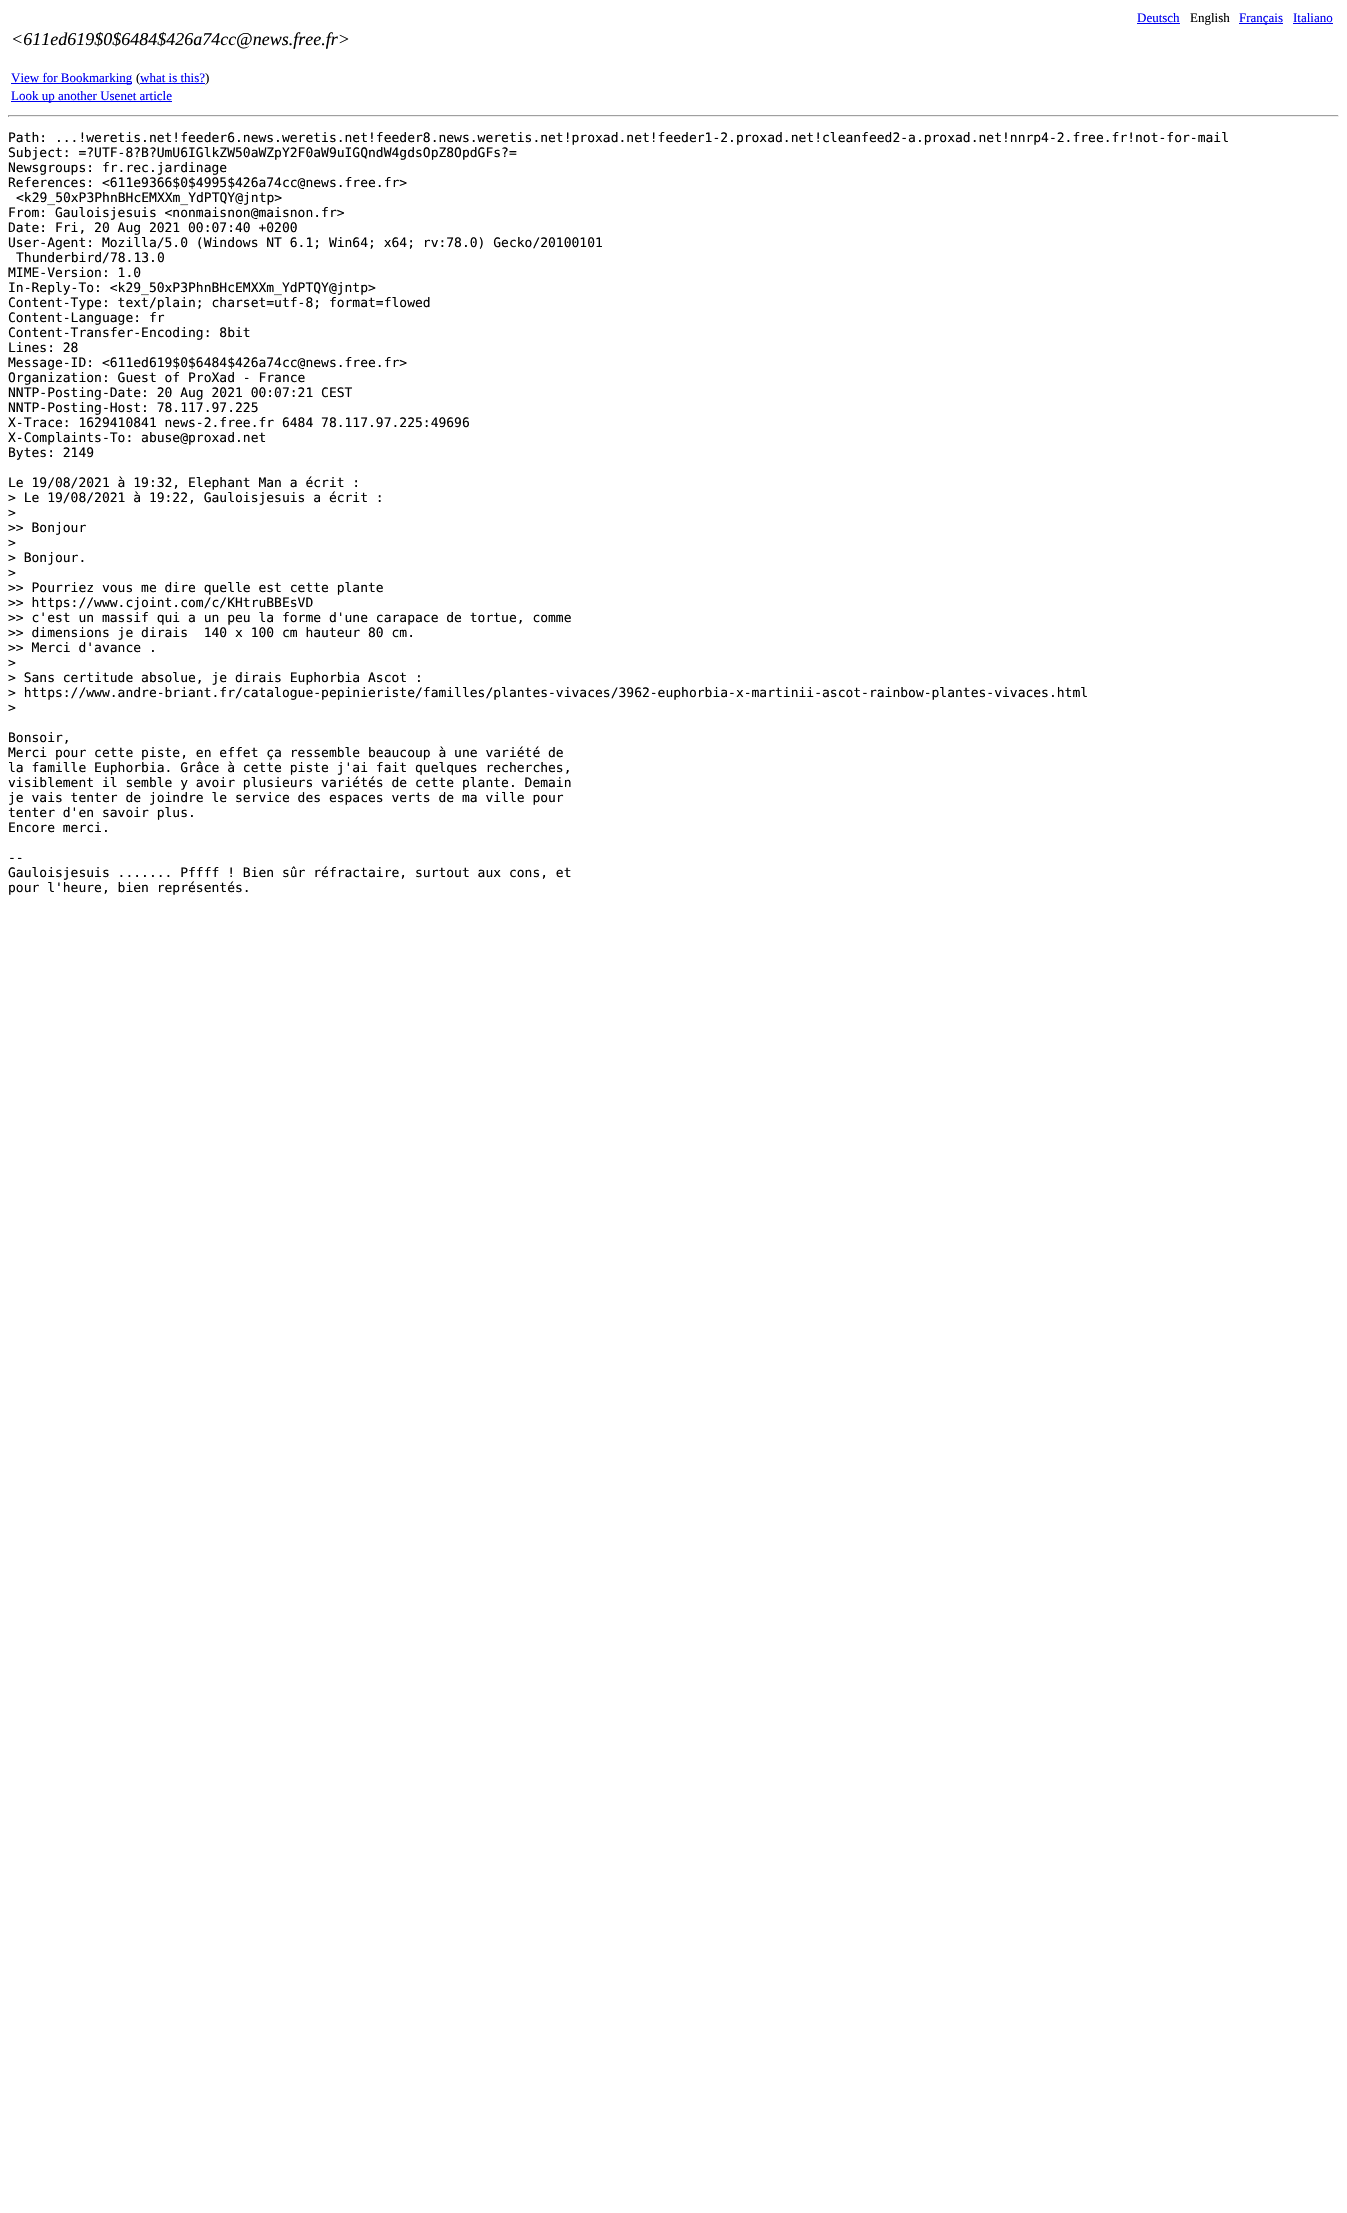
static SkFont makeFont(const char* family, int weight, float size, bool italic = false) {
  SkFontStyle style(weight, SkFontStyle::kNormal_Width,
    italic ? SkFontStyle::kItalic_Slant : SkFontStyle::kUpright_Slant);
  SkFont result(fontMgr->matchFamilyStyle(family, style), size);
  result.setSubpixel(true);
  return result;
}

static void text(SkCanvas* c, const char* s, float x, float y, const SkFont& font, SkColor color) {
  SkPaint ink(SkColor4f::FromColor(color));
  ink.setAntiAlias(true);
  c->drawString(s, x, y, font, ink);
}

static void box(SkCanvas* c, float l, float t, float r, float b, SkColor color) {
  SkPaint ink(SkColor4f::FromColor(color));
  ink.setAntiAlias(true);
  c->drawRect(SkRect::MakeLTRB(l, t, r, b), ink);
}

void draw(SkCanvas* c) {
  SkPaint paint;
  paint.setAntiAlias(true);
  c->clear(0xffffffff);
  SkFont face1 = makeFont("Liberation Serif", 400, 13);
  text(c, "Deutsch", 1137, 22, face1, 0xff0000ee);
  box(c, 1137, 23, 1180, 24, 0xff0000ee);
  text(c, "English", 1190, 22, face1, 0xff000000);
  box(c, 1239, 23, 1283, 24, 0xff0000ee);
  text(c, "Français", 1239, 22, face1, 0xff0000ee);
  text(c, "Italiano", 1293, 22, face1, 0xff0000ee);
  box(c, 1293, 23, 1333, 24, 0xff0000ee);
  SkFont face2 = makeFont("Liberation Serif", 400, 18, true);
  text(c, "<611ed619$0$6484$426a74cc@news.free.fr>", 11, 45, face2, 0xff000000);
  box(c, 11, 83, 132, 84, 0xff0000ee);
  text(c, "View for Bookmarking", 11, 82, face1, 0xff0000ee);
  text(c, "(", 136, 82, face1, 0xff000000);
  box(c, 140, 83, 205, 84, 0xff0000ee);
  text(c, "what is this?", 140, 82, face1, 0xff0000ee);
  text(c, ")", 205, 82, face1, 0xff000000);
  box(c, 11, 101, 172, 102, 0xff0000ee);
  text(c, "Look up another Usenet article", 11, 100, face1, 0xff0000ee);
  box(c, 8, 115, 1339, 116, 0xff9f9f9f);
  box(c, 1338, 115, 1339, 117, 0xffeeeeee);
  box(c, 8, 116, 1339, 117, 0xffeeeeee);
  box(c, 8, 115, 9, 117, 0xff9f9f9f);
  SkFont face3 = makeFont("DejaVu Sans Mono", 400, 13);
  text(c, "Path: ...!weretis.net!feeder6.news.weretis.net!feeder8.news.weretis.net!proxad.net!feeder1-2.proxad.net!cleanfeed2-a.proxad.net!nnrp4-2.free.fr!not-for-mail", 8, 142, face3, 0xff000000);
  text(c, "Subject: =?UTF-8?B?UmU6IGlkZW50aWZpY2F0aW9uIGQndW4gdsOpZ8OpdGFs?=", 8, 157, face3, 0xff000000);
  text(c, "Newsgroups: fr.rec.jardinage", 8, 172, face3, 0xff000000);
  text(c, "References: <611e9366$0$4995$426a74cc@news.free.fr>", 8, 187, face3, 0xff000000);
  text(c, "<k29_50xP3PhnBHcEMXXm_YdPTQY@jntp>", 16, 202, face3, 0xff000000);
  text(c, "From: Gauloisjesuis <nonmaisnon@maisnon.fr>", 8, 217, face3, 0xff000000);
  text(c, "Date: Fri, 20 Aug 2021 00:07:40 +0200", 8, 232, face3, 0xff000000);
  text(c, "User-Agent: Mozilla/5.0 (Windows NT 6.1; Win64; x64; rv:78.0) Gecko/20100101", 8, 247, face3, 0xff000000);
  text(c, "Thunderbird/78.13.0", 16, 262, face3, 0xff000000);
  text(c, "MIME-Version: 1.0", 8, 277, face3, 0xff000000);
  text(c, "In-Reply-To: <k29_50xP3PhnBHcEMXXm_YdPTQY@jntp>", 8, 292, face3, 0xff000000);
  text(c, "Content-Type: text/plain; charset=utf-8; format=flowed", 8, 307, face3, 0xff000000);
  text(c, "Content-Language: fr", 8, 322, face3, 0xff000000);
  text(c, "Content-Transfer-Encoding: 8bit", 8, 337, face3, 0xff000000);
  text(c, "Lines: 28", 8, 352, face3, 0xff000000);
  text(c, "Message-ID: <611ed619$0$6484$426a74cc@news.free.fr>", 8, 367, face3, 0xff000000);
  text(c, "Organization: Guest of ProXad - France", 8, 382, face3, 0xff000000);
  text(c, "NNTP-Posting-Date: 20 Aug 2021 00:07:21 CEST", 8, 397, face3, 0xff000000);
  text(c, "NNTP-Posting-Host: 78.117.97.225", 8, 412, face3, 0xff000000);
  text(c, "X-Trace: 1629410841 news-2.free.fr 6484 78.117.97.225:49696", 8, 427, face3, 0xff000000);
  text(c, "X-Complaints-To: abuse@proxad.net", 8, 442, face3, 0xff000000);
  text(c, "Bytes: 2149", 8, 457, face3, 0xff000000);
  text(c, "Le 19/08/2021 à 19:32, Elephant Man a écrit :", 8, 487, face3, 0xff000000);
  text(c, "> Le 19/08/2021 à 19:22, Gauloisjesuis a écrit :", 8, 502, face3, 0xff000000);
  text(c, ">", 8, 517, face3, 0xff000000);
  text(c, ">> Bonjour", 8, 532, face3, 0xff000000);
  text(c, ">", 8, 547, face3, 0xff000000);
  text(c, "> Bonjour.", 8, 562, face3, 0xff000000);
  text(c, ">", 8, 577, face3, 0xff000000);
  text(c, ">> Pourriez vous me dire quelle est cette plante", 8, 592, face3, 0xff000000);
  text(c, ">> https://www.cjoint.com/c/KHtruBBEsVD", 8, 607, face3, 0xff000000);
  text(c, ">> c'est un massif qui a un peu la forme d'une carapace de tortue, comme", 8, 622, face3, 0xff000000);
  text(c, ">> dimensions je dirais  140 x 100 cm hauteur 80 cm.", 8, 637, face3, 0xff000000);
  text(c, ">> Merci d'avance .", 8, 652, face3, 0xff000000);
  text(c, ">", 8, 667, face3, 0xff000000);
  text(c, "> Sans certitude absolue, je dirais Euphorbia Ascot :", 8, 682, face3, 0xff000000);
  text(c, "> https://www.andre-briant.fr/catalogue-pepinieriste/familles/plantes-vivaces/3962-euphorbia-x-martinii-ascot-rainbow-plantes-vivaces.html", 8, 697, face3, 0xff000000);
  text(c, ">", 8, 712, face3, 0xff000000);
  text(c, "Bonsoir,", 8, 742, face3, 0xff000000);
  text(c, "Merci pour cette piste, en effet ça ressemble beaucoup à une variété de", 8, 757, face3, 0xff000000);
  text(c, "la famille Euphorbia. Grâce à cette piste j'ai fait quelques recherches,", 8, 772, face3, 0xff000000);
  text(c, "visiblement il semble y avoir plusieurs variétés de cette plante. Demain", 8, 787, face3, 0xff000000);
  text(c, "je vais tenter de joindre le service des espaces verts de ma ville pour", 8, 802, face3, 0xff000000);
  text(c, "tenter d'en savoir plus.", 8, 817, face3, 0xff000000);
  text(c, "Encore merci.", 8, 832, face3, 0xff000000);
  text(c, "--", 8, 862, face3, 0xff000000);
  text(c, "Gauloisjesuis ....... Pffff ! Bien sûr réfractaire, surtout aux cons, et", 8, 877, face3, 0xff000000);
  text(c, "pour l'heure, bien représentés.", 8, 892, face3, 0xff000000);
}
